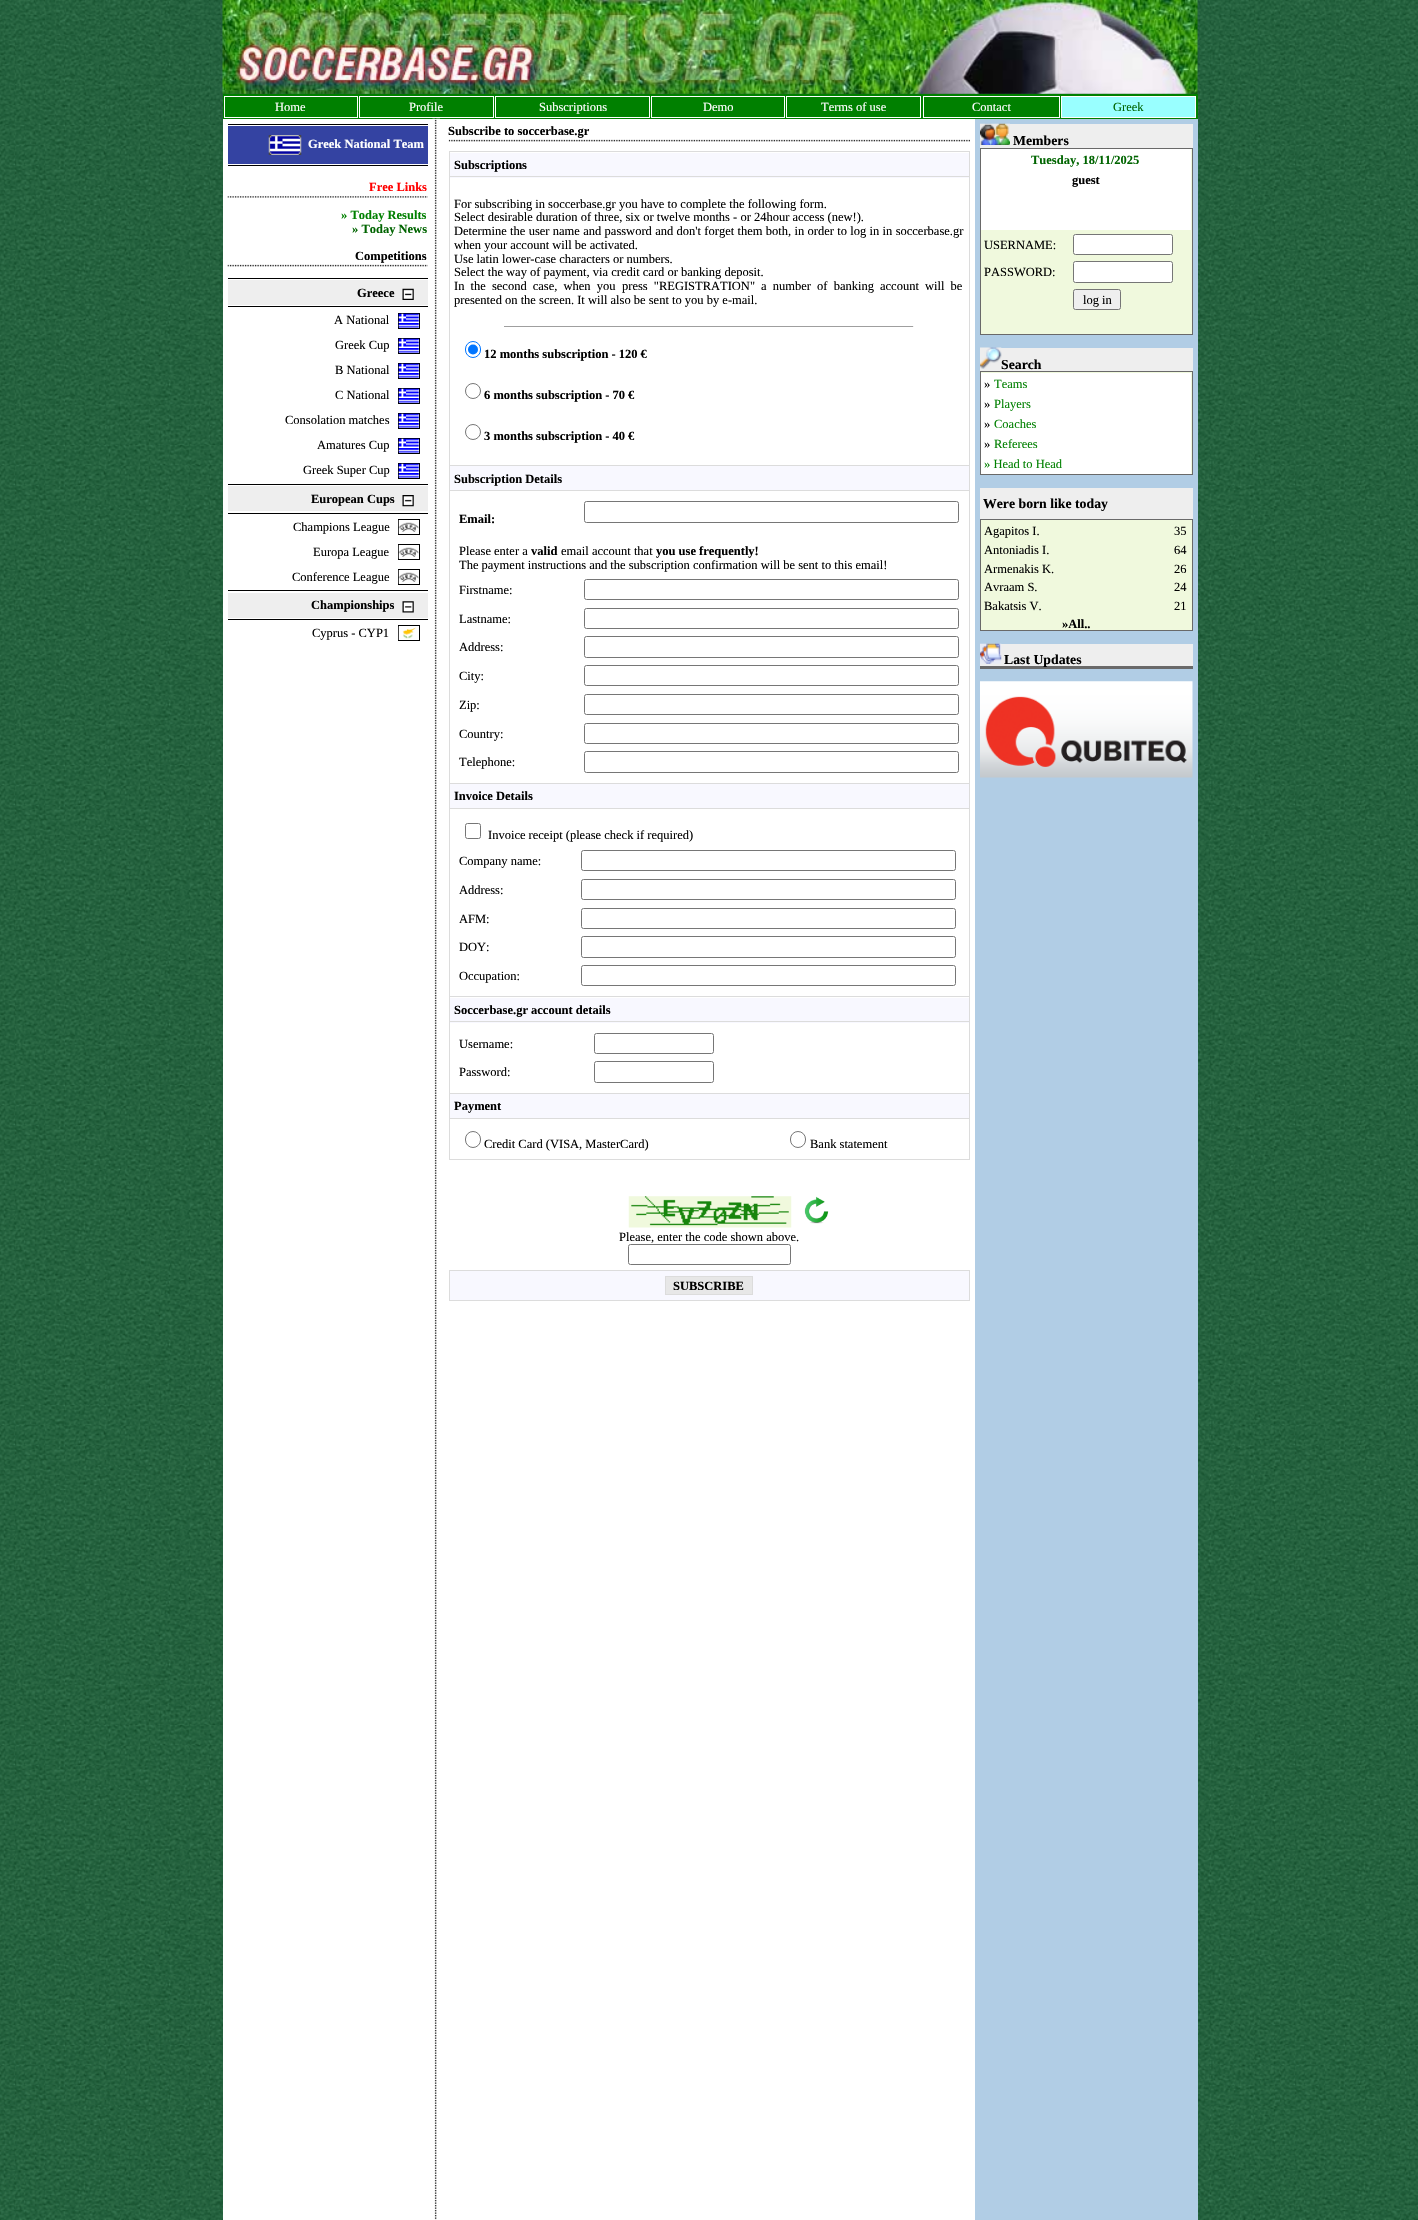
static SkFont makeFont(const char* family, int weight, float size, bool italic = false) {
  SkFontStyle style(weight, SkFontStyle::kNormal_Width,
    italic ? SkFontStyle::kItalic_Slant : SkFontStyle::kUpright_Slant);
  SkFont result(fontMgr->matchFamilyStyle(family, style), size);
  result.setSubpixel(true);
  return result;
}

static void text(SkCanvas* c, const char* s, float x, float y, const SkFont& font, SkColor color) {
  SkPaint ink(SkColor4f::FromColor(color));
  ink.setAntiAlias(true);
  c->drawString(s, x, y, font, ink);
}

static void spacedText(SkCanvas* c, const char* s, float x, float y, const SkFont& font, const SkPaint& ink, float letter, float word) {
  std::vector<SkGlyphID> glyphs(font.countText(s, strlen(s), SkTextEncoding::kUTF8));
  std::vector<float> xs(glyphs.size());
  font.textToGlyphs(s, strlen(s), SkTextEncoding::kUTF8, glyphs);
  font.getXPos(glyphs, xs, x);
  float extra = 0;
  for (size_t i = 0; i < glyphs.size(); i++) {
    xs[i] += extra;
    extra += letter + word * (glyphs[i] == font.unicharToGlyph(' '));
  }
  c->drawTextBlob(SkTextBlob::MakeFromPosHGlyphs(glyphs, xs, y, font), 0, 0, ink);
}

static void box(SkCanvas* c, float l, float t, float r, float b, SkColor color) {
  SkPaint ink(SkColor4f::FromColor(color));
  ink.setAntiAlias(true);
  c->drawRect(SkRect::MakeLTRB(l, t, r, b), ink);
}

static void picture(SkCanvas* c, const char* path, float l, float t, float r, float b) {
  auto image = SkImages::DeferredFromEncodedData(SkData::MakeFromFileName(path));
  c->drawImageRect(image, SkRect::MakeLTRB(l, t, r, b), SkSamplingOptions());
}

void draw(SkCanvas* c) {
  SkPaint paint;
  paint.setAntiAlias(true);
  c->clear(0xffffffff);
  picture(c, "img_01.png", 0, 0, 1418, 2220);
  picture(c, "img_02.png", 222, 0, 1198, 94);
  box(c, 223, 94, 1198, 119, 0xff008000);
  paint.setStyle(SkPaint::kStroke_Style);
  paint.setStrokeWidth(1);
  paint.setColor(0xffffffff);
  c->drawRect(SkRect::MakeLTRB(224.5f, 96.5f, 357.5f, 117.5f), paint);
  SkFont face1 = makeFont("Liberation Serif", 400, 12.5f);
  text(c, "Home", 275, 111, face1, 0xffffffff);
  c->drawRect(SkRect::MakeLTRB(359.5f, 96.5f, 493.5f, 117.5f), paint);
  text(c, "Profile", 409, 111, face1, 0xffffffff);
  c->drawRect(SkRect::MakeLTRB(495.5f, 96.5f, 649.5f, 117.5f), paint);
  text(c, "Subscriptions", 539, 111, face1, 0xffffffff);
  c->drawRect(SkRect::MakeLTRB(651.5f, 96.5f, 784.5f, 117.5f), paint);
  text(c, "Demo", 703, 111, face1, 0xffffffff);
  c->drawRect(SkRect::MakeLTRB(786.5f, 96.5f, 920.5f, 117.5f), paint);
  text(c, "Terms of use", 821, 111, face1, 0xffffffff);
  c->drawRect(SkRect::MakeLTRB(923.5f, 96.5f, 1059.5f, 117.5f), paint);
  text(c, "Contact", 972, 111, face1, 0xffffffff);
  paint.setStyle(SkPaint::kFill_Style);
  paint.setColor(0xff99ffff);
  c->drawRect(SkRect::MakeLTRB(1061.5f, 96.5f, 1195.5f, 117.5f), paint);
  paint.setStyle(SkPaint::kStroke_Style);
  paint.setColor(0xffffffff);
  c->drawRect(SkRect::MakeLTRB(1061.5f, 96.5f, 1195.5f, 117.5f), paint);
  text(c, "Greek", 1113, 111, face1, 0xff006400);
  box(c, 223, 119, 975, 2220, 0xffffffff);
  box(c, 228, 124, 428, 125, 0xff000000);
  box(c, 228, 126, 428, 164, 0xff3443a2);
  picture(c, "img_03.png", 268, 135, 302, 155);
  SkFont face2 = makeFont("Liberation Serif", 700, 12.5f);
  text(c, "Greek National Team", 308, 148, face2, 0xffffffff);
  box(c, 228, 165, 428, 166, 0xff000000);
  text(c, "Free Links", 369, 191, face2, 0xffff0000);
  picture(c, "img_04.png", 227, 196, 428, 198);
  text(c, "» Today Results", 341, 219, face2, 0xff008000);
  text(c, "» Today News", 352, 233, face2, 0xff006400);
  text(c, "Competitions", 355, 260, face2, 0xff000000);
  picture(c, "img_05.png", 227, 264, 428, 267);
  box(c, 228, 278, 428, 279, 0xff000000);
  box(c, 228, 280, 428, 305, 0xffeeeeee);
  text(c, "Greece", 357, 297, face2, 0xff000000);
  picture(c, "img_06.png", 402, 288, 414, 300);
  box(c, 228, 306, 428, 307, 0xff000000);
  text(c, "A National", 334, 324, face1, 0xff000000);
  paint.setColor(0xff000000);
  c->drawRect(SkRect::MakeLTRB(398.5f, 313.5f, 419.5f, 328.5f), paint);
  picture(c, "img_07.png", 398, 313, 419, 328);
  text(c, "Greek Cup", 335, 349, face1, 0xff000000);
  c->drawRect(SkRect::MakeLTRB(398.5f, 338.5f, 419.5f, 353.5f), paint);
  picture(c, "img_07.png", 398, 338, 419, 353);
  text(c, "B National", 335, 374, face1, 0xff000000);
  c->drawRect(SkRect::MakeLTRB(398.5f, 363.5f, 419.5f, 378.5f), paint);
  picture(c, "img_07.png", 398, 363, 419, 378);
  text(c, "C National", 335, 399, face1, 0xff000000);
  c->drawRect(SkRect::MakeLTRB(398.5f, 388.5f, 419.5f, 403.5f), paint);
  picture(c, "img_07.png", 398, 388, 419, 403);
  text(c, "Consolation matches", 285, 424, face1, 0xff000000);
  c->drawRect(SkRect::MakeLTRB(398.5f, 413.5f, 419.5f, 428.5f), paint);
  picture(c, "img_07.png", 398, 413, 419, 428);
  text(c, "Amatures Cup", 317, 449, face1, 0xff000000);
  c->drawRect(SkRect::MakeLTRB(398.5f, 438.5f, 419.5f, 453.5f), paint);
  picture(c, "img_07.png", 398, 438, 419, 453);
  text(c, "Greek Super Cup", 303, 474, face1, 0xff000000);
  c->drawRect(SkRect::MakeLTRB(398.5f, 463.5f, 419.5f, 478.5f), paint);
  picture(c, "img_07.png", 398, 463, 419, 478);
  box(c, 228, 484, 428, 485, 0xff000000);
  box(c, 228, 486, 428, 511, 0xffeeeeee);
  text(c, "European Cups", 311, 503, face2, 0xff000000);
  picture(c, "img_08.png", 402, 495, 414, 507);
  box(c, 228, 513, 428, 514, 0xff000000);
  text(c, "Champions League", 293, 531, face1, 0xff000000);
  c->drawRect(SkRect::MakeLTRB(398.5f, 519.5f, 419.5f, 534.5f), paint);
  picture(c, "img_09.png", 398, 520, 419, 534);
  text(c, "Europa League", 313, 556, face1, 0xff000000);
  c->drawRect(SkRect::MakeLTRB(398.5f, 544.5f, 419.5f, 559.5f), paint);
  picture(c, "img_09.png", 398, 545, 419, 559);
  text(c, "Conference League", 292, 581, face1, 0xff000000);
  c->drawRect(SkRect::MakeLTRB(398.5f, 569.5f, 419.5f, 584.5f), paint);
  picture(c, "img_09.png", 398, 570, 419, 584);
  box(c, 228, 590, 428, 591, 0xff000000);
  box(c, 228, 593, 428, 618, 0xffeeeeee);
  text(c, "Championships", 311, 609, face2, 0xff000000);
  picture(c, "img_10.png", 402, 601, 414, 613);
  box(c, 228, 619, 428, 620, 0xff000000);
  text(c, "Cyprus - CYP1", 312, 637, face1, 0xff000000);
  c->drawRect(SkRect::MakeLTRB(398.5f, 625.5f, 419.5f, 640.5f), paint);
  picture(c, "img_11.png", 398, 626, 416, 640);
  picture(c, "img_12.png", 432, 118, 440, 2220);
  text(c, "Subscribe to soccerbase.gr", 448, 135, face2, 0xff000000);
  picture(c, "img_13.png", 448, 139, 970, 142);
  box(c, 450, 153, 969, 178, 0xfff8f8ff);
  box(c, 449, 151, 970, 152, 0xffdcdcdc);
  box(c, 449, 176, 970, 177, 0xffdcdcdc);
  box(c, 449, 465, 970, 466, 0xffdcdcdc);
  box(c, 449, 490, 970, 491, 0xffdcdcdc);
  box(c, 449, 783, 970, 784, 0xffdcdcdc);
  box(c, 449, 808, 970, 809, 0xffdcdcdc);
  box(c, 449, 996, 970, 997, 0xffdcdcdc);
  box(c, 450, 998, 969, 1023, 0xfff8f8ff);
  box(c, 449, 1021, 970, 1022, 0xffdcdcdc);
  box(c, 449, 1093, 970, 1094, 0xffdcdcdc);
  box(c, 449, 1118, 970, 1119, 0xffdcdcdc);
  box(c, 969, 1118, 970, 1160, 0xffdcdcdc);
  box(c, 969, 1093, 970, 1119, 0xffdcdcdc);
  box(c, 969, 1021, 970, 1094, 0xffdcdcdc);
  box(c, 969, 996, 970, 1023, 0xffdcdcdc);
  box(c, 969, 808, 970, 998, 0xffdcdcdc);
  box(c, 969, 783, 970, 809, 0xffdcdcdc);
  box(c, 969, 490, 970, 784, 0xffdcdcdc);
  box(c, 969, 465, 970, 491, 0xffdcdcdc);
  box(c, 969, 176, 970, 466, 0xffdcdcdc);
  box(c, 969, 151, 970, 178, 0xffdcdcdc);
  box(c, 449, 1159, 970, 1160, 0xffdcdcdc);
  box(c, 449, 1118, 450, 1160, 0xffdcdcdc);
  box(c, 449, 1093, 450, 1119, 0xffdcdcdc);
  box(c, 449, 1021, 450, 1094, 0xffdcdcdc);
  box(c, 449, 996, 450, 1023, 0xffdcdcdc);
  box(c, 449, 808, 450, 998, 0xffdcdcdc);
  box(c, 449, 783, 450, 809, 0xffdcdcdc);
  box(c, 449, 490, 450, 784, 0xffdcdcdc);
  box(c, 449, 465, 450, 491, 0xffdcdcdc);
  box(c, 449, 176, 450, 466, 0xffdcdcdc);
  box(c, 449, 151, 450, 178, 0xffdcdcdc);
  text(c, "Subscriptions", 454, 169, face2, 0xff000000);
  text(c, "For subscribing in soccerbase.gr you have to complete the following form.", 454, 208, face1, 0xff000000);
  text(c, "Select desirable duration of three, six or twelve months - or 24hour access (new!).", 454, 221, face1, 0xff000000);
  paint.setStyle(SkPaint::kFill_Style);
  spacedText(c, "Determine the user name and password and don't forget them both, in order to log in in soccerbase.gr", 454, 235, face1, paint, 0, 0.2f);
  text(c, "when your account will be activated.", 454, 249, face1, 0xff000000);
  text(c, "Use latin lower-case characters or numbers.", 454, 263, face1, 0xff000000);
  text(c, "Select the way of payment, via credit card or banking deposit.", 454, 276, face1, 0xff000000);
  spacedText(c, "In the second case, when you", 454, 290, face1, paint, 0, 3);
  spacedText(c, "press \"REGISTRATION\" a number of banking account will be", 622, 290, face1, paint, 0, 3);
  text(c, "presented on the screen. It will also be sent to you by e-mail.", 454, 304, face1, 0xff000000);
  box(c, 504, 326, 914, 327, 0xff9f9f9f);
  box(c, 913, 326, 914, 327, 0xffeeeeee);
  paint.setStyle(SkPaint::kStroke_Style);
  paint.setColor(0xff0075ff);
  c->drawRoundRect(SkRect::MakeLTRB(465.5f, 341.5f, 480.5f, 357.5f), 7.5f, 7.5f, paint);
  paint.setStyle(SkPaint::kFill_Style);
  c->drawCircle(473, 349.5f, 5, paint);
  text(c, "12 months subscription - 120 €", 484, 358, face2, 0xff000000);
  paint.setStyle(SkPaint::kStroke_Style);
  paint.setColor(0xff767676);
  c->drawCircle(473, 391, 7.5f, paint);
  text(c, "6 months subscription - 70 €", 484, 399, face2, 0xff000000);
  c->drawCircle(473, 432, 7.5f, paint);
  text(c, "3 months subscription - 40 €", 484, 440, face2, 0xff000000);
  box(c, 450, 466, 969, 490, 0xfff8f8ff);
  text(c, "Subscription Details", 454, 483, face2, 0xff000000);
  text(c, "Email:", 459, 523, face2, 0xff000000);
  c->drawRoundRect(SkRect::MakeLTRB(584.5f, 501.5f, 958.5f, 522.5f), 2, 2, paint);
  text(c, "Please enter a", 459, 555, face1, 0xff000000);
  text(c, "valid", 531, 555, face2, 0xff000000);
  text(c, "email account that", 561, 555, face1, 0xff000000);
  text(c, "you use frequently!", 656, 555, face2, 0xff000000);
  text(c, "The payment instructions and the subscription confirmation will be sent to this email!", 459, 569, face1, 0xff000000);
  text(c, "Firstname:", 459, 594, face1, 0xff000000);
  c->drawRoundRect(SkRect::MakeLTRB(584.5f, 579.5f, 958.5f, 599.5f), 2, 2, paint);
  text(c, "Lastname:", 459, 623, face1, 0xff000000);
  c->drawRoundRect(SkRect::MakeLTRB(584.5f, 608.5f, 958.5f, 628.5f), 2, 2, paint);
  text(c, "Address:", 459, 651, face1, 0xff000000);
  c->drawRoundRect(SkRect::MakeLTRB(584.5f, 636.5f, 958.5f, 657.5f), 2, 2, paint);
  text(c, "City:", 459, 680, face1, 0xff000000);
  c->drawRoundRect(SkRect::MakeLTRB(584.5f, 665.5f, 958.5f, 685.5f), 2, 2, paint);
  text(c, "Zip:", 459, 709, face1, 0xff000000);
  c->drawRoundRect(SkRect::MakeLTRB(584.5f, 694.5f, 958.5f, 714.5f), 2, 2, paint);
  text(c, "Country:", 459, 738, face1, 0xff000000);
  c->drawRoundRect(SkRect::MakeLTRB(584.5f, 723.5f, 958.5f, 743.5f), 2, 2, paint);
  text(c, "Telephone:", 459, 766, face1, 0xff000000);
  c->drawRoundRect(SkRect::MakeLTRB(584.5f, 751.5f, 958.5f, 772.5f), 2, 2, paint);
  box(c, 450, 784, 969, 808, 0xfff8f8ff);
  text(c, "Invoice Details", 454, 800, face2, 0xff000000);
  c->drawRoundRect(SkRect::MakeLTRB(465.5f, 823.5f, 480.5f, 838.5f), 2, 2, paint);
  text(c, "Invoice receipt (please check if required)", 488, 839, face1, 0xff000000);
  text(c, "Company name:", 459, 865, face1, 0xff000000);
  c->drawRoundRect(SkRect::MakeLTRB(581.5f, 850.5f, 955.5f, 870.5f), 2, 2, paint);
  text(c, "Address:", 459, 894, face1, 0xff000000);
  c->drawRoundRect(SkRect::MakeLTRB(581.5f, 879.5f, 955.5f, 899.5f), 2, 2, paint);
  text(c, "AFM:", 459, 923, face1, 0xff000000);
  c->drawRoundRect(SkRect::MakeLTRB(581.5f, 908.5f, 955.5f, 928.5f), 2, 2, paint);
  text(c, "DOY:", 459, 951, face1, 0xff000000);
  c->drawRoundRect(SkRect::MakeLTRB(581.5f, 936.5f, 955.5f, 957.5f), 2, 2, paint);
  text(c, "Occupation:", 459, 980, face1, 0xff000000);
  c->drawRoundRect(SkRect::MakeLTRB(581.5f, 965.5f, 955.5f, 985.5f), 2, 2, paint);
  text(c, "Soccerbase.gr account details", 454, 1014, face2, 0xff000000);
  text(c, "Username:", 459, 1048, face1, 0xff000000);
  c->drawRoundRect(SkRect::MakeLTRB(594.5f, 1033.5f, 713.5f, 1053.5f), 2, 2, paint);
  text(c, "Password:", 459, 1076, face1, 0xff000000);
  c->drawRoundRect(SkRect::MakeLTRB(594.5f, 1061.5f, 713.5f, 1082.5f), 2, 2, paint);
  box(c, 450, 1094, 969, 1118, 0xfff8f8ff);
  text(c, "Payment", 454, 1110, face2, 0xff000000);
  c->drawRoundRect(SkRect::MakeLTRB(465.5f, 1131.5f, 480.5f, 1147.5f), 7.5f, 7.5f, paint);
  text(c, "Credit Card (VISA, MasterCard)", 484, 1148, face1, 0xff000000);
  c->drawRoundRect(SkRect::MakeLTRB(790.5f, 1131.5f, 805.5f, 1147.5f), 7.5f, 7.5f, paint);
  text(c, "Bank statement", 810, 1148, face1, 0xff000000);
  picture(c, "img_14.png", 628, 1196, 792, 1228);
  picture(c, "img_15.png", 804, 1196, 829, 1224);
  text(c, "Please, enter the code shown above.", 619, 1241, face1, 0xff000000);
  c->drawRoundRect(SkRect::MakeLTRB(628.5f, 1244.5f, 790.5f, 1264.5f), 2, 2, paint);
  box(c, 450, 1271, 969, 1300, 0xfff8f8ff);
  box(c, 449, 1270, 970, 1271, 0xffdcdcdc);
  box(c, 969, 1270, 970, 1301, 0xffdcdcdc);
  box(c, 449, 1300, 970, 1301, 0xffdcdcdc);
  box(c, 449, 1270, 450, 1301, 0xffdcdcdc);
  paint.setStyle(SkPaint::kFill_Style);
  paint.setColor(0xffe7e7e7);
  c->drawRect(SkRect::MakeLTRB(665.5f, 1276.5f, 752.5f, 1294.5f), paint);
  paint.setStyle(SkPaint::kStroke_Style);
  paint.setColor(0xffdcdcdc);
  c->drawRect(SkRect::MakeLTRB(665.5f, 1276.5f, 752.5f, 1294.5f), paint);
  text(c, "SUBSCRIBE", 673, 1290, face2, 0xff000000);
  box(c, 975, 119, 1198, 2220, 0xffb1cde5);
  box(c, 980, 124, 1193, 148, 0xffeeeeee);
  picture(c, "img_16.png", 980, 123, 1010, 145);
  SkFont face3 = makeFont("Liberation Serif", 700, 13.75f);
  text(c, "Members", 1013, 145, face3, 0xff000000);
  paint.setStyle(SkPaint::kFill_Style);
  paint.setColor(0xfff0f9dd);
  c->drawRect(SkRect::MakeLTRB(980.5f, 148.5f, 1192.5f, 334.5f), paint);
  paint.setStyle(SkPaint::kStroke_Style);
  paint.setColor(0xff696969);
  c->drawRect(SkRect::MakeLTRB(980.5f, 148.5f, 1192.5f, 334.5f), paint);
  box(c, 981, 149, 1191, 230, 0xffffffff);
  text(c, "Tuesday, 18/11/2025", 1031, 164, face2, 0xff006400);
  text(c, "guest", 1072, 184, face2, 0xff000000);
  text(c, "USERNAME:", 984, 249, face1, 0xff000000);
  paint.setStyle(SkPaint::kFill_Style);
  paint.setColor(0xffffffff);
  c->drawRoundRect(SkRect::MakeLTRB(1073.5f, 234.5f, 1172.5f, 254.5f), 2, 2, paint);
  paint.setStyle(SkPaint::kStroke_Style);
  paint.setColor(0xff767676);
  c->drawRoundRect(SkRect::MakeLTRB(1073.5f, 234.5f, 1172.5f, 254.5f), 2, 2, paint);
  text(c, "PASSWORD:", 984, 276, face1, 0xff000000);
  paint.setStyle(SkPaint::kFill_Style);
  paint.setColor(0xffffffff);
  c->drawRoundRect(SkRect::MakeLTRB(1073.5f, 261.5f, 1172.5f, 282.5f), 2, 2, paint);
  paint.setStyle(SkPaint::kStroke_Style);
  paint.setColor(0xff767676);
  c->drawRoundRect(SkRect::MakeLTRB(1073.5f, 261.5f, 1172.5f, 282.5f), 2, 2, paint);
  paint.setStyle(SkPaint::kFill_Style);
  paint.setColor(0xffefefef);
  c->drawRoundRect(SkRect::MakeLTRB(1073.5f, 289.5f, 1120.5f, 309.5f), 2, 2, paint);
  paint.setStyle(SkPaint::kStroke_Style);
  paint.setColor(0xff767676);
  c->drawRoundRect(SkRect::MakeLTRB(1073.5f, 289.5f, 1120.5f, 309.5f), 2, 2, paint);
  text(c, "log in", 1083, 304, face1, 0xff000000);
  box(c, 980, 348, 1193, 371, 0xffeeeeee);
  picture(c, "img_17.png", 980, 347, 1002, 369);
  text(c, "Search", 1001, 369, face3, 0xff000000);
  paint.setStyle(SkPaint::kFill_Style);
  paint.setColor(0xfff0f9dd);
  c->drawRect(SkRect::MakeLTRB(980.5f, 371.5f, 1192.5f, 474.5f), paint);
  paint.setStyle(SkPaint::kStroke_Style);
  paint.setColor(0xff696969);
  c->drawRect(SkRect::MakeLTRB(980.5f, 371.5f, 1192.5f, 474.5f), paint);
  box(c, 981, 373, 1191, 474, 0xffffffff);
  text(c, "»", 984, 388, face1, 0xff000000);
  text(c, "Teams", 994, 388, face1, 0xff008000);
  text(c, "»", 984, 408, face1, 0xff000000);
  text(c, "Players", 994, 408, face1, 0xff008000);
  text(c, "»", 984, 428, face1, 0xff000000);
  text(c, "Coaches", 994, 428, face1, 0xff008000);
  text(c, "»", 984, 448, face1, 0xff000000);
  text(c, "Referees", 994, 448, face1, 0xff008000);
  text(c, "» Head to Head", 984, 468, face1, 0xff008000);
  box(c, 980, 488, 1193, 519, 0xffeeeeee);
  text(c, "Were born like today", 983, 508, face3, 0xff000000);
  paint.setStyle(SkPaint::kFill_Style);
  paint.setColor(0xfff0f9dd);
  c->drawRect(SkRect::MakeLTRB(980.5f, 519.5f, 1192.5f, 630.5f), paint);
  paint.setStyle(SkPaint::kStroke_Style);
  paint.setColor(0xff696969);
  c->drawRect(SkRect::MakeLTRB(980.5f, 519.5f, 1192.5f, 630.5f), paint);
  text(c, "Agapitos I.", 984, 535, face1, 0xff000000);
  text(c, "35", 1174, 535, face1, 0xff000000);
  text(c, "Antoniadis I.", 984, 554, face1, 0xff000000);
  text(c, "64", 1174, 554, face1, 0xff000000);
  text(c, "Armenakis K.", 984, 573, face1, 0xff000000);
  text(c, "26", 1174, 573, face1, 0xff000000);
  text(c, "Avraam S.", 984, 591, face1, 0xff000000);
  text(c, "24", 1174, 591, face1, 0xff000000);
  text(c, "Bakatsis V.", 984, 610, face1, 0xff000000);
  text(c, "21", 1174, 610, face1, 0xff000000);
  text(c, "»All..", 1062, 628, face2, 0xff000000);
  box(c, 980, 644, 1193, 666, 0xffeeeeee);
  picture(c, "img_18.png", 980, 643, 1002, 664);
  box(c, 980, 666, 1193, 669, 0xff696969);
  text(c, "Last Updates", 1004, 664, face3, 0xff000000);
  picture(c, "img_19.png", 980, 681, 1193, 778);
}
